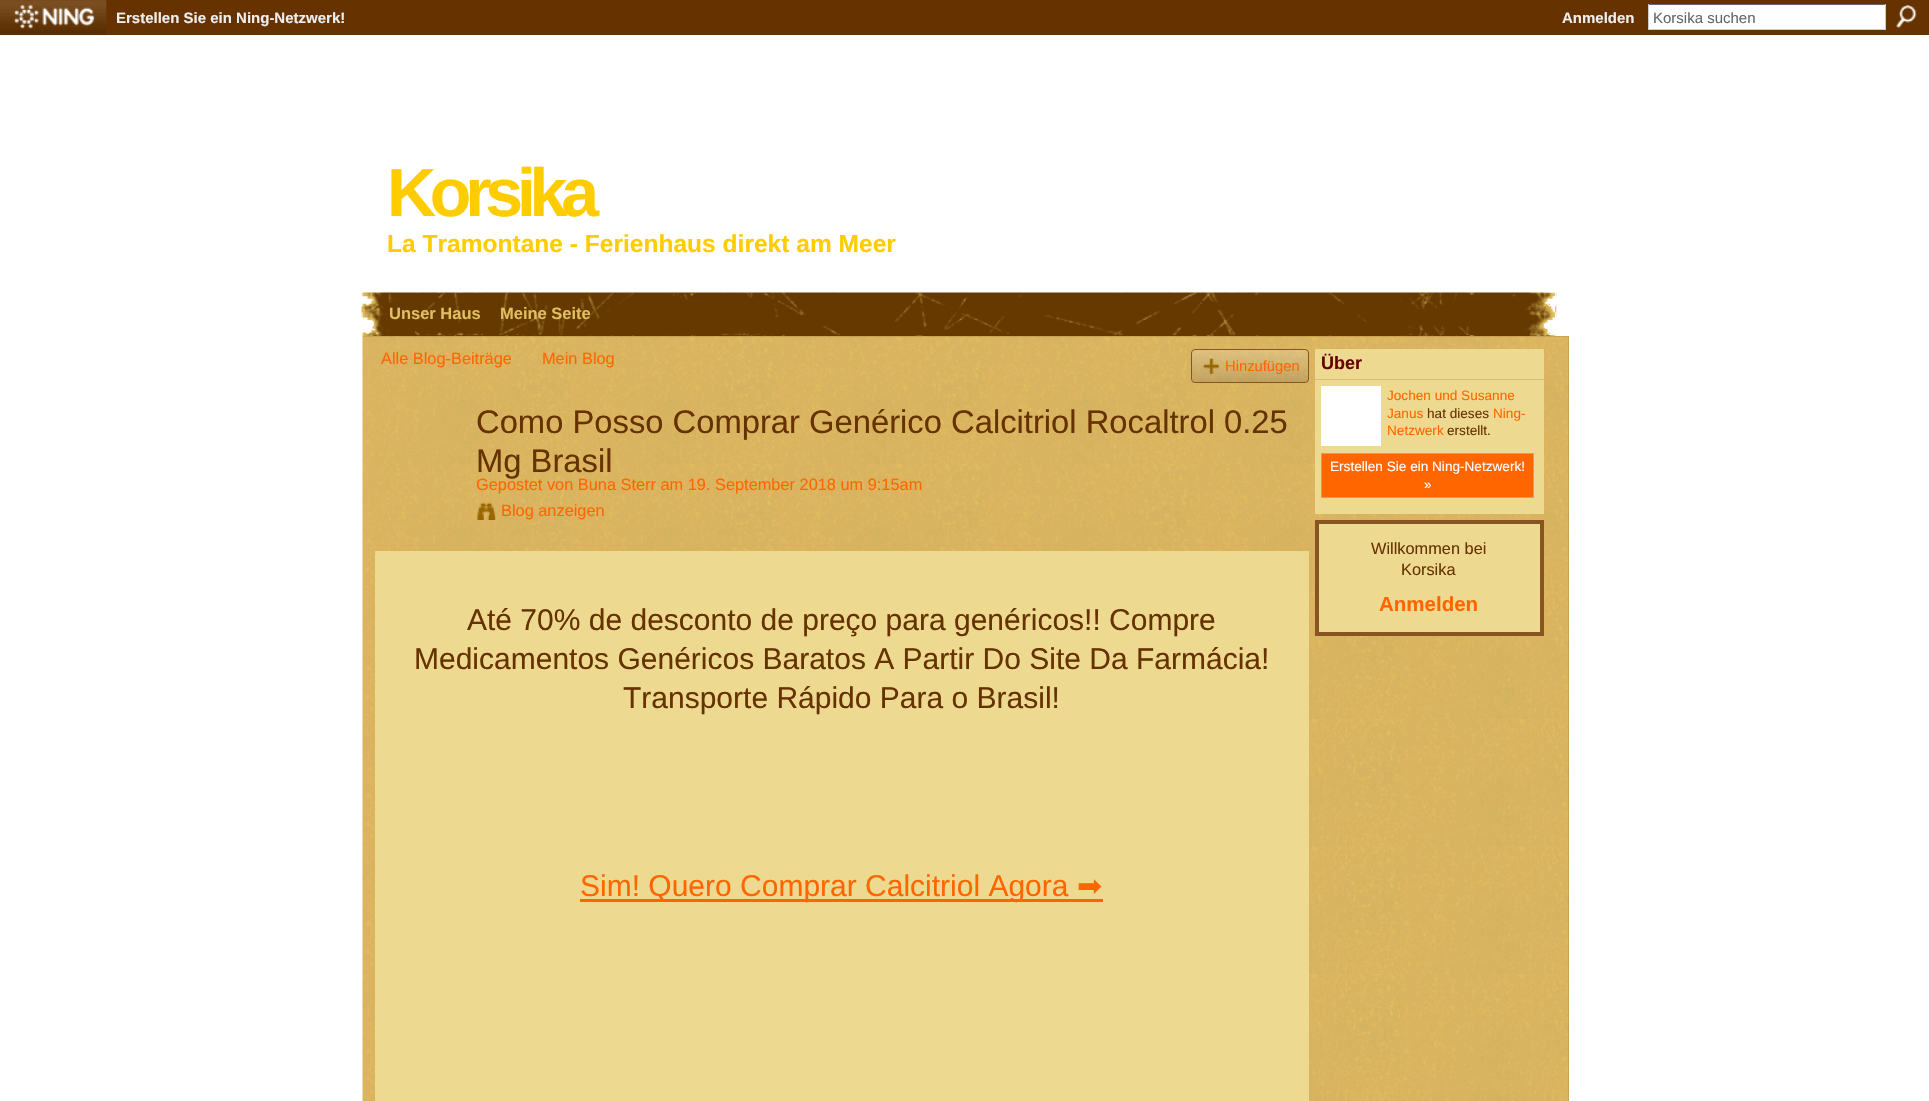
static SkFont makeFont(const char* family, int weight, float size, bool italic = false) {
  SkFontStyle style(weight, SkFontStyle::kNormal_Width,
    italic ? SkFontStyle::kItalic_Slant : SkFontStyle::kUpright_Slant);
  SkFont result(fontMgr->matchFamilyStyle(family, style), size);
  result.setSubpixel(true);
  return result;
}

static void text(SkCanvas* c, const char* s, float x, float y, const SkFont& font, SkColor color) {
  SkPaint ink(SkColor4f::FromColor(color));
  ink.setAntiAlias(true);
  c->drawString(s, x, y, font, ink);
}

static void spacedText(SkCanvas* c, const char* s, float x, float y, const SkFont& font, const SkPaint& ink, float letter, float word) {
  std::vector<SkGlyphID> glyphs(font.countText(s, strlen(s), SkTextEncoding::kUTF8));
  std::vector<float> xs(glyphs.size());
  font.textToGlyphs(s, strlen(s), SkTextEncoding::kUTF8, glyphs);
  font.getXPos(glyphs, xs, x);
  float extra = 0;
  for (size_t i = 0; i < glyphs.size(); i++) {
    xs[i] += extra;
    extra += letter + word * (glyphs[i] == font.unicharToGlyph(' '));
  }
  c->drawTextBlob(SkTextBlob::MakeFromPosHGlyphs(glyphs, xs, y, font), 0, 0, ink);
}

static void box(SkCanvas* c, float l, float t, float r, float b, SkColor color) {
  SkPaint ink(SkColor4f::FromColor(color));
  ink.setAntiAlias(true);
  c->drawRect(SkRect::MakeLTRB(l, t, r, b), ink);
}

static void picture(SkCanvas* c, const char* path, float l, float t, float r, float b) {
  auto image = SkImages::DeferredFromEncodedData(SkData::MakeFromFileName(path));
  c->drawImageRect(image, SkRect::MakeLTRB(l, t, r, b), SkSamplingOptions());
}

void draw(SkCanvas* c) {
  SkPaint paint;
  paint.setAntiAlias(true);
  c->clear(0xffffffff);
  box(c, 0, 0, 1929, 35, 0xff663300);
  picture(c, "img_01.png", 0, 0, 107, 35);
  picture(c, "img_02.png", 14, 4, 95, 29);
  SkFont face1 = makeFont("Liberation Sans", 700, 15);
  text(c, "Erstellen Sie ein Ning-Netzwerk!", 116, 23, face1, 0xffeeeeee);
  text(c, "Anmelden", 1562, 23, face1, 0xffeeeeee);
  box(c, 1649, 5, 1885, 29, 0xffffffff);
  box(c, 1648, 4, 1886, 5, 0xff666666);
  box(c, 1885, 4, 1886, 30, 0xffcccccc);
  box(c, 1648, 29, 1886, 30, 0xffcccccc);
  box(c, 1648, 4, 1649, 30, 0xffcccccc);
  SkFont face2 = makeFont("Liberation Sans", 400, 15);
  text(c, "Korsika suchen", 1653, 23, face2, 0xff666666);
  picture(c, "img_03.png", 1896, 5, 1917, 28);
  SkFont face3 = makeFont("Liberation Sans", 700, 68);
  paint.setColor(0xffffcc00);
  spacedText(c, "Korsika", 387, 216, face3, paint, -6.25f, 0);
  SkFont face4 = makeFont("Liberation Sans", 700, 24.55f);
  text(c, "La Tramontane - Ferienhaus direkt am Meer", 387, 252, face4, 0xffffcc00);
  picture(c, "img_04.png", 361, 292, 1557, 337);
  SkFont face5 = makeFont("Liberation Sans", 700, 16.5f);
  text(c, "Unser Haus", 389, 319, face5, 0xffe1bf60);
  text(c, "Meine Seite", 500, 319, face5, 0xffe1bf60);
  box(c, 363, 336, 1569, 1101, 0xff996633);
  picture(c, "img_05.png", 362, 336, 1569, 1101);
  SkFont face6 = makeFont("Liberation Sans", 400, 16.35f);
  text(c, "Alle Blog-Beiträge", 381, 364, face6, 0xffff6600);
  text(c, "Mein Blog", 542, 364, face6, 0xffff6600);
  picture(c, "img_06.png", 1191, 350, 1309, 383);
  paint.setStyle(SkPaint::kStroke_Style);
  paint.setStrokeWidth(1);
  paint.setColor(0xff885522);
  c->drawRoundRect(SkRect::MakeLTRB(1191.5f, 349.5f, 1308.5f, 382.5f), 3.5f, 3.5f, paint);
  picture(c, "img_07.png", 1203, 358, 1219, 374);
  SkFont face7 = makeFont("Liberation Sans", 400, 14.75f);
  text(c, "Hinzufügen", 1225, 371, face7, 0xffff6600);
  SkFont face8 = makeFont("Liberation Sans", 400, 32.75f);
  text(c, "Como Posso Comprar Genérico Calcitriol Rocaltrol 0.25", 476, 433, face8, 0xff663300);
  text(c, "Mg Brasil", 476, 472, face8, 0xff663300);
  text(c, "Gepostet von Buna Sterr am 19. September 2018 um 9:15am", 476, 490, face6, 0xffff6600);
  picture(c, "img_08.png", 477, 502, 496, 520);
  text(c, "Blog anzeigen", 501, 516, face6, 0xffff6600);
  box(c, 375, 551, 1309, 1101, 0xffeed990);
  SkFont face9 = makeFont("Liberation Sans", 400, 30);
  text(c, "Até 70% de desconto de preço para genéricos!! Compre", 467, 630, face9, 0xff663300);
  text(c, "Medicamentos Genéricos Baratos A Partir Do Site Da Farmácia!", 414, 669, face9, 0xff663300);
  text(c, "Transporte Rápido Para o Brasil!", 623, 708, face9, 0xff663300);
  box(c, 580, 899, 1103, 902, 0xffff6600);
  text(c, "Sim! Quero Comprar Calcitriol Agora", 580, 896, face9, 0xffff6600);
  SkFont face10 = makeFont("DejaVu Sans", 400, 30);
  text(c, "➡", 1077, 896, face10, 0xffff6600);
  box(c, 1315, 349, 1544, 379, 0xffeed990);
  box(c, 1315, 379, 1544, 380, 0xffd6be77);
  SkFont face11 = makeFont("Liberation Sans", 700, 18);
  text(c, "Über", 1321, 369, face11, 0xff660000);
  box(c, 1315, 380, 1544, 514, 0xffeed990);
  box(c, 1321, 386, 1381, 446, 0xffffffff);
  SkFont face12 = makeFont("Liberation Sans", 400, 13.6f);
  text(c, "Jochen und Susanne", 1387, 400, face12, 0xffff6600);
  text(c, "Janus", 1387, 418, face12, 0xffff6600);
  text(c, "hat dieses", 1427, 418, face12, 0xff663300);
  text(c, "Ning-", 1493, 418, face12, 0xffff6600);
  text(c, "Netzwerk", 1387, 435, face12, 0xffff6600);
  text(c, "erstellt.", 1447, 435, face12, 0xff663300);
  paint.setStyle(SkPaint::kFill_Style);
  paint.setColor(0xffff6600);
  c->drawRect(SkRect::MakeLTRB(1321.5f, 453.5f, 1533.5f, 497.5f), paint);
  paint.setStyle(SkPaint::kStroke_Style);
  paint.setColor(0xffaaaaaa);
  c->drawRect(SkRect::MakeLTRB(1321.5f, 453.5f, 1533.5f, 497.5f), paint);
  text(c, "Erstellen Sie ein Ning-Netzwerk!", 1330, 471, face12, 0xffffffff);
  text(c, "»", 1424, 489, face12, 0xffffffff);
  paint.setStyle(SkPaint::kFill_Style);
  paint.setColor(0xffeed990);
  c->drawRect(SkRect::MakeLTRB(1317, 522, 1542, 634), paint);
  paint.setStyle(SkPaint::kStroke_Style);
  paint.setStrokeWidth(4);
  paint.setColor(0xff885522);
  c->drawRect(SkRect::MakeLTRB(1317, 522, 1542, 634), paint);
  text(c, "Willkommen bei", 1371, 554, face6, 0xff663300);
  text(c, "Korsika", 1401, 575, face6, 0xff663300);
  SkFont face13 = makeFont("Liberation Sans", 700, 20.5f);
  text(c, "Anmelden", 1379, 611, face13, 0xffff6600);
}
